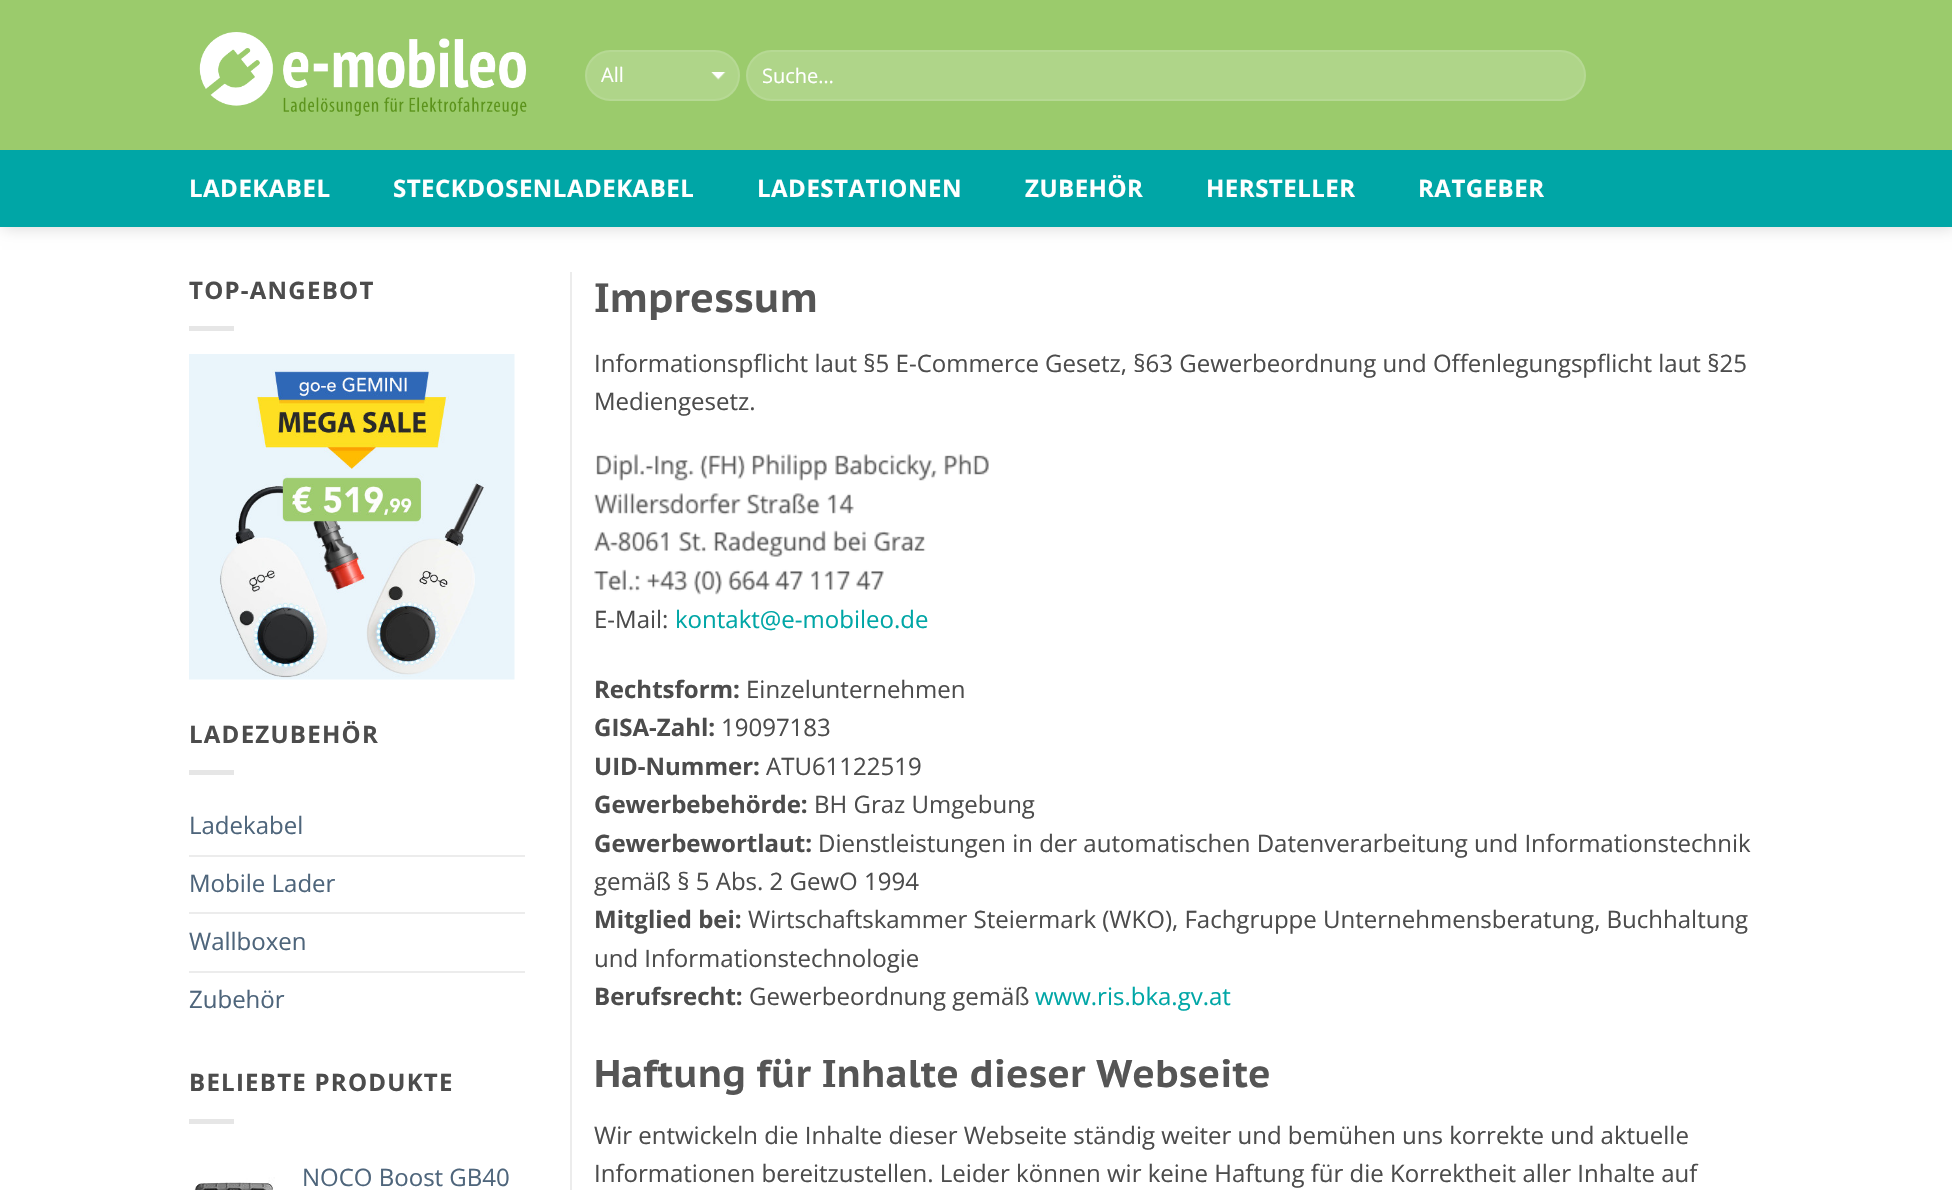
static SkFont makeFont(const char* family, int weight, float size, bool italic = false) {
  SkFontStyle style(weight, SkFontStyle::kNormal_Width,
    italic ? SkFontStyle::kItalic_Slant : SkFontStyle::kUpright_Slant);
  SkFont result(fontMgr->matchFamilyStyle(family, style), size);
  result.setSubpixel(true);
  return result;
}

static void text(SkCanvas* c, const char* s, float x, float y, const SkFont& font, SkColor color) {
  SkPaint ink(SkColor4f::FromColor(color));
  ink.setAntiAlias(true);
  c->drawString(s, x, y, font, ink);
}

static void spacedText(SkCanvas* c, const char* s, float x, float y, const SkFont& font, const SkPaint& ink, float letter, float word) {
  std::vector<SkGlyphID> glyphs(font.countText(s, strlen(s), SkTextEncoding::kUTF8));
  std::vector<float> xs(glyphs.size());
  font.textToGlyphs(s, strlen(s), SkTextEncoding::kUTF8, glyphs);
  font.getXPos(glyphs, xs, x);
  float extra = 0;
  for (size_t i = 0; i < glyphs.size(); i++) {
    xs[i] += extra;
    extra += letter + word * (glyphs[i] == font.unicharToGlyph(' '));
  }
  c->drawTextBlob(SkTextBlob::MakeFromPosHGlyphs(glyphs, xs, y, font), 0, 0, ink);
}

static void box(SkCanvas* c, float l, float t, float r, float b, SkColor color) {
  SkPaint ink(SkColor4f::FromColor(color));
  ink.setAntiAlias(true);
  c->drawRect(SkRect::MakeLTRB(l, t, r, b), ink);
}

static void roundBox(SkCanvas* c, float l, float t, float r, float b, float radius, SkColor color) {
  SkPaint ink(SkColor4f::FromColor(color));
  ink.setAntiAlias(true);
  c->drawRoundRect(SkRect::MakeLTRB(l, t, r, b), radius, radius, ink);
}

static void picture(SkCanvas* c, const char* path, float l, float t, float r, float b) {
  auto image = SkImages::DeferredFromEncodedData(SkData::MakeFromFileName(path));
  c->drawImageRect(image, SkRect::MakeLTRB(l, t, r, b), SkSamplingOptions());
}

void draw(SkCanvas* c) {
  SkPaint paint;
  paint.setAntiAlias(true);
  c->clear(0xffffffff);
  paint.setColor(0x26000000);
  paint.setMaskFilter(SkMaskFilter::MakeBlur(kNormal_SkBlurStyle, 7.5f));
  c->drawRect(SkRect::MakeLTRB(2, 2, 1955, 228), paint);
  paint.setMaskFilter(nullptr);
  box(c, 0, 0, 1952, 150, 0xff9bcb6c);
  picture(c, "img_01.png", 199, 32, 527, 116);
  roundBox(c, 585, 50, 740, 101, 25.5f, 0xffafd589);
  picture(c, "img_02.png", 711, 72, 726, 80);
  paint.setStyle(SkPaint::kStroke_Style);
  paint.setStrokeWidth(2);
  paint.setColor(0x17ffffff);
  c->drawRoundRect(SkRect::MakeLTRB(586, 51, 739, 100), 24.5f, 24.5f, paint);
  SkFont face1 = makeFont("Open Sans", 400, 20);
  text(c, "All", 601, 82, face1, 0xffffffff);
  roundBox(c, 746, 50, 1586, 101, 25.5f, 0xffafd589);
  c->drawRoundRect(SkRect::MakeLTRB(747, 51, 1585, 100), 24.5f, 24.5f, paint);
  text(c, "Suche…", 762, 83, face1, 0xffffffff);
  box(c, 0, 150, 1952, 227, 0xff00a6a6);
  SkFont face2 = makeFont("Open Sans", 700, 24);
  paint.setStyle(SkPaint::kFill_Style);
  paint.setColor(0xffffffff);
  spacedText(c, "LADEKABEL", 189, 197, face2, paint, 0.5f, 0);
  spacedText(c, "STECKDOSENLADEKABEL", 393, 197, face2, paint, 0.5f, 0);
  spacedText(c, "LADESTATIONEN", 757, 197, face2, paint, 0.5f, 0);
  spacedText(c, "ZUBEHÖR", 1025, 197, face2, paint, 0.5f, 0);
  spacedText(c, "HERSTELLER", 1206, 197, face2, paint, 0.5f, 0);
  spacedText(c, "RATGEBER", 1418, 197, face2, paint, 0.5f, 0);
  box(c, 570, 272, 572, 1190, 0xffececec);
  paint.setColor(0xff4c4c4c);
  spacedText(c, "TOP-ANGEBOT", 189, 299, face2, paint, 1.25f, 0);
  box(c, 189, 326, 234, 331, 0xffe6e6e6);
  picture(c, "img_03.png", 189, 354, 515, 680);
  spacedText(c, "LADEZUBEHÖR", 189, 743, face2, paint, 1.25f, 0);
  box(c, 189, 770, 234, 775, 0xffe6e6e6);
  SkFont face3 = makeFont("Open Sans", 400, 24);
  text(c, "Ladekabel", 189, 834, face3, 0xff4e657b);
  box(c, 189, 855, 525, 857, 0xffececec);
  text(c, "Mobile Lader", 189, 892, face3, 0xff4e657b);
  box(c, 189, 912, 525, 914, 0xffececec);
  text(c, "Wallboxen", 189, 950, face3, 0xff4e657b);
  box(c, 189, 971, 525, 973, 0xffececec);
  text(c, "Zubehör", 189, 1008, face3, 0xff4e657b);
  spacedText(c, "BELIEBTE PRODUKTE", 189, 1091, face2, paint, 1.25f, 0);
  box(c, 189, 1119, 234, 1124, 0xffe6e6e6);
  picture(c, "img_04.png", 194, 1177, 275, 1190);
  text(c, "NOCO Boost GB40", 302, 1186, face3, 0xff4e657b);
  SkFont face4 = makeFont("PT Sans Caption", 700, 40.75f);
  text(c, "Impressum", 594, 312, face4, 0xff555555);
  text(c, "Informationspflicht laut §5 E-Commerce Gesetz, §63 Gewerbeordnung und Offenlegungspflicht laut §25", 594, 372, face3, 0xff4c4c4c);
  text(c, "Mediengesetz.", 594, 410, face3, 0xff4c4c4c);
  picture(c, "img_05.png", 594, 454, 989, 595);
  text(c, "E-Mail:", 594, 628, face3, 0xff4c4c4c);
  text(c, "kontakt@e-mobileo.de", 675, 628, face3, 0xff00a6a6);
  text(c, "Rechtsform:", 594, 698, face2, 0xff4c4c4c);
  text(c, "Einzelunternehmen", 746, 698, face3, 0xff4c4c4c);
  text(c, "GISA-Zahl:", 594, 736, face2, 0xff4c4c4c);
  text(c, "19097183", 721, 736, face3, 0xff4c4c4c);
  text(c, "UID-Nummer:", 594, 775, face2, 0xff4c4c4c);
  text(c, "ATU61122519", 766, 775, face3, 0xff4c4c4c);
  text(c, "Gewerbebehörde:", 594, 813, face2, 0xff4c4c4c);
  text(c, "BH Graz Umgebung", 814, 813, face3, 0xff4c4c4c);
  text(c, "Gewerbewortlaut:", 594, 852, face2, 0xff4c4c4c);
  text(c, "Dienstleistungen in der automatischen Datenverarbeitung und Informationstechnik", 818, 852, face3, 0xff4c4c4c);
  text(c, "gemäß § 5 Abs. 2 GewO 1994", 594, 890, face3, 0xff4c4c4c);
  text(c, "Mitglied bei:", 594, 928, face2, 0xff4c4c4c);
  text(c, "Wirtschaftskammer Steiermark (WKO), Fachgruppe Unternehmensberatung, Buchhaltung", 748, 928, face3, 0xff4c4c4c);
  text(c, "und Informationstechnologie", 594, 967, face3, 0xff4c4c4c);
  text(c, "Berufsrecht:", 594, 1005, face2, 0xff4c4c4c);
  text(c, "Gewerbeordnung gemäß", 749, 1005, face3, 0xff4c4c4c);
  text(c, "www.ris.bka.gv.at", 1035, 1005, face3, 0xff00a6a6);
  SkFont face5 = makeFont("PT Sans Caption", 700, 38.4f);
  text(c, "Haftung für Inhalte dieser Webseite", 594, 1087, face5, 0xff555555);
  text(c, "Wir entwickeln die Inhalte dieser Webseite ständig weiter und bemühen uns korrekte und aktuelle", 594, 1144, face3, 0xff4c4c4c);
  text(c, "Informationen bereitzustellen. Leider können wir keine Haftung für die Korrektheit aller Inhalte auf", 594, 1182, face3, 0xff4c4c4c);
}
